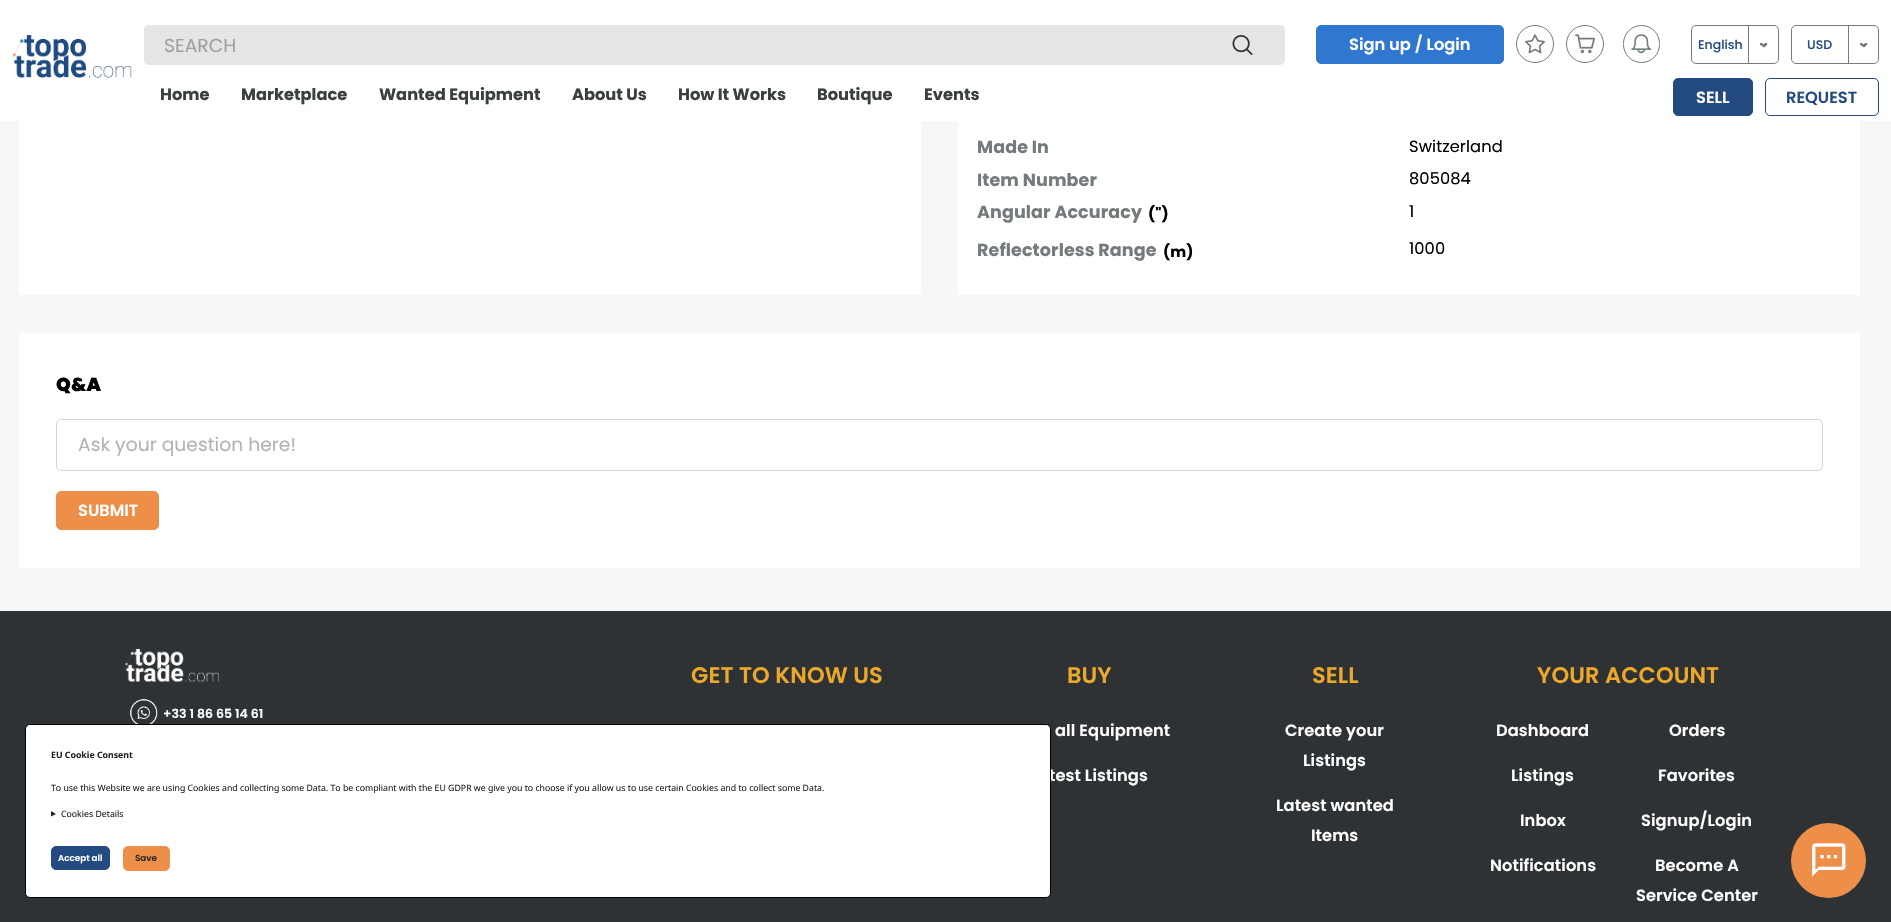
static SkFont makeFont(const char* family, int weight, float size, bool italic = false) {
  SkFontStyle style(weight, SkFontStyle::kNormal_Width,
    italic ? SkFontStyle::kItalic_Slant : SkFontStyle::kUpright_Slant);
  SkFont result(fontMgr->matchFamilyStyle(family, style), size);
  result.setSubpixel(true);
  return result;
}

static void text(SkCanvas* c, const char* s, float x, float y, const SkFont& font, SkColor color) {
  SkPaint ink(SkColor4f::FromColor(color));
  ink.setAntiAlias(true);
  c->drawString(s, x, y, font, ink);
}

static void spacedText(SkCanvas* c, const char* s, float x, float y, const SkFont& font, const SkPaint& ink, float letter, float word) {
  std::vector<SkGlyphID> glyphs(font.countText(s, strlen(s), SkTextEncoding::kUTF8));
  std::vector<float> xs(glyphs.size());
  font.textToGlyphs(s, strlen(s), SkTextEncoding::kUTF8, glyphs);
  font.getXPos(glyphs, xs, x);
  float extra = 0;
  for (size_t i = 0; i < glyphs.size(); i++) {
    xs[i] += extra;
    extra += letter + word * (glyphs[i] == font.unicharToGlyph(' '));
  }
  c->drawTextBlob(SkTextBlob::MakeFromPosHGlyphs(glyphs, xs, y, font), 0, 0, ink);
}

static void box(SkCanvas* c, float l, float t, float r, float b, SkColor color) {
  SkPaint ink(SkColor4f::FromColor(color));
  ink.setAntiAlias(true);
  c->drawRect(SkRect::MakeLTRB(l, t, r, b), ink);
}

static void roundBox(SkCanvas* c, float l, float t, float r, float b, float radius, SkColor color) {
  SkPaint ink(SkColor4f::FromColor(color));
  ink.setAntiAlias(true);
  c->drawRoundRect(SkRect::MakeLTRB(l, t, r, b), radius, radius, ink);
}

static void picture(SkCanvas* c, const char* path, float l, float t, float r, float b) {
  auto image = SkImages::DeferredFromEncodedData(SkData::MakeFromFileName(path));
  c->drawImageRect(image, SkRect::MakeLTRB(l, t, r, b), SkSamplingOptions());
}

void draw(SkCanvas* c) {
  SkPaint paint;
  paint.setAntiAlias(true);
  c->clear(0xfff7f7f7);
  box(c, 0, 0, 1891, 121, 0xffffffff);
  picture(c, "img_01.png", 12, 35, 132, 78);
  roundBox(c, 144, 25, 1285, 65, 5, 0xffe5e5e5);
  roundBox(c, 144, 25, 1213, 65, 5, 0xffe5e5e5);
  SkFont face1 = makeFont("Poppins", 400, 18.75f);
  text(c, "SEARCH", 164, 52, face1, 0xffa0a0a0);
  picture(c, "img_02.png", 1232, 35, 1253, 55);
  paint.setColor(0xff3077cf);
  c->drawRoundRect(SkRect::MakeLTRB(1316.5f, 25.5f, 1503.5f, 63.5f), 4.5f, 4.5f, paint);
  paint.setStyle(SkPaint::kStroke_Style);
  paint.setStrokeWidth(1);
  c->drawRoundRect(SkRect::MakeLTRB(1316.5f, 25.5f, 1503.5f, 63.5f), 4.5f, 4.5f, paint);
  SkFont face2 = makeFont("Poppins", 600, 16.25f);
  text(c, "Sign up / Login", 1349, 50, face2, 0xffffffff);
  paint.setColor(0xff737b7d);
  c->drawCircle(1535, 44, 18.5f, paint);
  picture(c, "img_03.png", 1525, 34, 1545, 54);
  c->drawCircle(1585, 44, 18.5f, paint);
  picture(c, "img_04.png", 1575, 34, 1595, 54);
  c->drawRoundRect(SkRect::MakeLTRB(1623.5f, 25.5f, 1659.5f, 62.5f), 18, 18, paint);
  picture(c, "img_05.png", 1631, 34, 1652, 54);
  c->drawRoundRect(SkRect::MakeLTRB(1691.5f, 25.5f, 1778.5f, 63.5f), 4.5f, 4.5f, paint);
  SkFont face3 = makeFont("Poppins", 500, 12.5f);
  text(c, "English", 1698, 49, face3, 0xff234a81);
  box(c, 1748, 26, 1749, 63, 0xff737b7d);
  c->save();
  c->clipRect(SkRect::MakeLTRB(1760, 43, 1768, 48));
  paint.setStrokeWidth(2.5f);
  paint.setStrokeCap(SkPaint::kRound_Cap);
  paint.setStrokeJoin(SkPaint::kRound_Join);
  c->drawPath(SkPathBuilder().moveTo(1761, 44).lineTo(1764, 46).lineTo(1766, 44).detach(), paint);
  c->restore();
  paint.setStrokeWidth(1);
  paint.setStrokeCap(SkPaint::kButt_Cap);
  paint.setStrokeJoin(SkPaint::kMiter_Join);
  c->drawRoundRect(SkRect::MakeLTRB(1791.5f, 25.5f, 1878.5f, 63.5f), 4.5f, 4.5f, paint);
  text(c, "USD", 1807, 49, face3, 0xff234a81);
  box(c, 1848, 26, 1849, 63, 0xff737b7d);
  c->save();
  c->clipRect(SkRect::MakeLTRB(1860, 43, 1868, 48));
  paint.setStrokeWidth(2.5f);
  paint.setStrokeCap(SkPaint::kRound_Cap);
  paint.setStrokeJoin(SkPaint::kRound_Join);
  c->drawPath(SkPathBuilder().moveTo(1861, 44).lineTo(1864, 46).lineTo(1866, 44).detach(), paint);
  c->restore();
  SkFont face4 = makeFont("Poppins", 700, 16.25f);
  text(c, "Home", 160, 100, face4, 0xff3a3f40);
  text(c, "Marketplace", 241, 100, face4, 0xff3a3f40);
  text(c, "Wanted Equipment", 379, 100, face4, 0xff3a3f40);
  text(c, "About Us", 572, 100, face4, 0xff3a3f40);
  text(c, "How It Works", 678, 100, face4, 0xff3a3f40);
  text(c, "Boutique", 817, 100, face4, 0xff3a3f40);
  text(c, "Events", 924, 100, face4, 0xff3a3f40);
  paint.setStyle(SkPaint::kFill_Style);
  paint.setColor(0xff234a81);
  c->drawRoundRect(SkRect::MakeLTRB(1673.5f, 78.5f, 1752.5f, 115.5f), 4.5f, 4.5f, paint);
  paint.setStyle(SkPaint::kStroke_Style);
  paint.setStrokeWidth(1);
  paint.setStrokeCap(SkPaint::kButt_Cap);
  paint.setStrokeJoin(SkPaint::kMiter_Join);
  c->drawRoundRect(SkRect::MakeLTRB(1673.5f, 78.5f, 1752.5f, 115.5f), 4.5f, 4.5f, paint);
  text(c, "SELL", 1696, 103, face2, 0xffffffff);
  c->drawRoundRect(SkRect::MakeLTRB(1765.5f, 78.5f, 1878.5f, 115.5f), 4.5f, 4.5f, paint);
  text(c, "REQUEST", 1786, 103, face2, 0xff234a81);
  box(c, 19, 121, 921, 295, 0xffffffff);
  box(c, 958, 121, 1860, 295, 0xffffffff);
  SkFont face5 = makeFont("Poppins", 700, 17.5f);
  paint.setStyle(SkPaint::kFill_Style);
  paint.setColor(0xff737b7d);
  spacedText(c, "Made In", 977, 153, face5, paint, 0.1f, 0);
  SkFont face6 = makeFont("Poppins", 400, 16.25f);
  paint.setColor(0xff000000);
  spacedText(c, "Switzerland", 1409, 152, face6, paint, 0.1f, 0);
  paint.setColor(0xff737b7d);
  spacedText(c, "Item Number", 977, 186, face5, paint, 0.1f, 0);
  paint.setColor(0xff000000);
  spacedText(c, "805084", 1409, 184, face6, paint, 0.1f, 0);
  paint.setColor(0xff737b7d);
  spacedText(c, "Angular Accuracy", 977, 218, face5, paint, 0.1f, 0);
  SkFont face7 = makeFont("Poppins", 700, 15);
  paint.setColor(0xff000000);
  spacedText(c, "(\")", 1148, 219, face7, paint, 0.1f, 0);
  spacedText(c, "1", 1409, 217, face6, paint, 0.1f, 0);
  paint.setColor(0xff737b7d);
  spacedText(c, "Reflectorless Range", 977, 256, face5, paint, 0.1f, 0);
  paint.setColor(0xff000000);
  spacedText(c, "(m)", 1163, 257, face7, paint, 0.1f, 0);
  spacedText(c, "1000", 1409, 254, face6, paint, 0.1f, 0);
  box(c, 19, 333, 1860, 568, 0xffffffff);
  SkFont face8 = makeFont("Poppins", 900, 18.75f);
  spacedText(c, "Q&A", 56, 391, face8, paint, 0.1f, 0);
  paint.setStyle(SkPaint::kStroke_Style);
  paint.setColor(0xffd5d5d5);
  c->drawRoundRect(SkRect::MakeLTRB(56.5f, 419.5f, 1822.5f, 470.5f), 4.5f, 4.5f, paint);
  text(c, "Ask your question here!", 78, 451, face1, 0xffb3b3b3);
  paint.setStyle(SkPaint::kFill_Style);
  paint.setColor(0xffed8f48);
  c->drawRoundRect(SkRect::MakeLTRB(56.5f, 491.5f, 158.5f, 529.5f), 4.5f, 4.5f, paint);
  paint.setStyle(SkPaint::kStroke_Style);
  c->drawRoundRect(SkRect::MakeLTRB(56.5f, 491.5f, 158.5f, 529.5f), 4.5f, 4.5f, paint);
  text(c, "SUBMIT", 78, 516, face2, 0xffffffff);
  box(c, 0, 611, 1891, 922, 0xff2f3234);
  picture(c, "img_06.png", 125, 649, 219, 682);
  picture(c, "img_07.png", 129, 698, 158, 724);
  SkFont face9 = makeFont("Poppins", 600, 12.5f);
  text(c, "+33 1 86 65 14 61", 163, 718, face9, 0xffffffff);
  SkFont face10 = makeFont("Poppins", 600, 22.5f);
  paint.setStyle(SkPaint::kFill_Style);
  paint.setColor(0xffeba829);
  spacedText(c, "GET TO KNOW US", 691, 683, face10, paint, 0.1f, 0);
  spacedText(c, "BUY", 1067, 683, face10, paint, 0.1f, 0);
  paint.setColor(0xffffffff);
  spacedText(c, "all Equipment", 1055, 736, face2, paint, 0.1f, 0);
  spacedText(c, "test Listings", 1049, 781, face2, paint, 0.1f, 0);
  paint.setColor(0xffeba829);
  spacedText(c, "SELL", 1312, 683, face10, paint, 0.1f, 0);
  paint.setColor(0xffffffff);
  spacedText(c, "Create your", 1285, 736, face2, paint, 0.1f, 0);
  spacedText(c, "Listings", 1303, 766, face2, paint, 0.1f, 0);
  spacedText(c, "Latest wanted", 1276, 811, face2, paint, 0.1f, 0);
  spacedText(c, "Items", 1311, 841, face2, paint, 0.1f, 0);
  paint.setColor(0xffeba829);
  spacedText(c, "YOUR ACCOUNT", 1537, 683, face10, paint, 0.1f, 0);
  paint.setColor(0xffffffff);
  spacedText(c, "Dashboard", 1496, 736, face2, paint, 0.1f, 0);
  spacedText(c, "Listings", 1511, 781, face2, paint, 0.1f, 0);
  spacedText(c, "Inbox", 1520, 826, face2, paint, 0.1f, 0);
  spacedText(c, "Notifications", 1490, 871, face2, paint, 0.1f, 0);
  spacedText(c, "Orders", 1669, 736, face2, paint, 0.1f, 0);
  spacedText(c, "Favorites", 1658, 781, face2, paint, 0.1f, 0);
  spacedText(c, "Signup/Login", 1641, 826, face2, paint, 0.1f, 0);
  spacedText(c, "Become A", 1655, 871, face2, paint, 0.1f, 0);
  spacedText(c, "Service Center", 1636, 901, face2, paint, 0.1f, 0);
  paint.setColor(0xffed8f48);
  c->drawCircle(1828.5f, 860.5f, 37.5f, paint);
  picture(c, "img_08.png", 1812, 843, 1846, 877);
  paint.setColor(0xffffffff);
  c->drawRoundRect(SkRect::MakeLTRB(25.5f, 724.5f, 1050.5f, 897.5f), 4.5f, 4.5f, paint);
  paint.setStyle(SkPaint::kStroke_Style);
  paint.setColor(0xff000000);
  c->drawRoundRect(SkRect::MakeLTRB(25.5f, 724.5f, 1050.5f, 897.5f), 4.5f, 4.5f, paint);
  SkFont face11 = makeFont("Noto Sans", 700, 8.75f);
  text(c, "EU Cookie Consent", 51, 758, face11, 0xff212529);
  SkFont face12 = makeFont("Noto Sans", 400, 8.75f);
  text(c, "To use this Website we are using Cookies and collecting some Data. To be compliant with the EU GDPR we give you to choose if you allow us to use certain Cookies and to collect some Data.", 51, 791, face12, 0xff212529);
  paint.setStyle(SkPaint::kFill_Style);
  paint.setColor(0xff212529);
  c->drawPath(SkPathBuilder().moveTo(51, 811).lineTo(56, 814).lineTo(51, 816.5f).close().detach(), paint);
  text(c, "Cookies Details", 61, 817, face12, 0xff212529);
  paint.setColor(0xff234a81);
  c->drawRoundRect(SkRect::MakeLTRB(51.5f, 846.5f, 109.5f, 869.5f), 4.5f, 4.5f, paint);
  paint.setStyle(SkPaint::kStroke_Style);
  c->drawRoundRect(SkRect::MakeLTRB(51.5f, 846.5f, 109.5f, 869.5f), 4.5f, 4.5f, paint);
  SkFont face13 = makeFont("Poppins", 600, 8.75f);
  text(c, "Accept all", 58, 861, face13, 0xffffffff);
  paint.setStyle(SkPaint::kFill_Style);
  paint.setColor(0xffed8f48);
  c->drawRoundRect(SkRect::MakeLTRB(123.5f, 846.5f, 169.5f, 870.5f), 4.5f, 4.5f, paint);
  paint.setStyle(SkPaint::kStroke_Style);
  c->drawRoundRect(SkRect::MakeLTRB(123.5f, 846.5f, 169.5f, 870.5f), 4.5f, 4.5f, paint);
  text(c, "Save", 135, 861, face13, 0xff2c2828);
}
